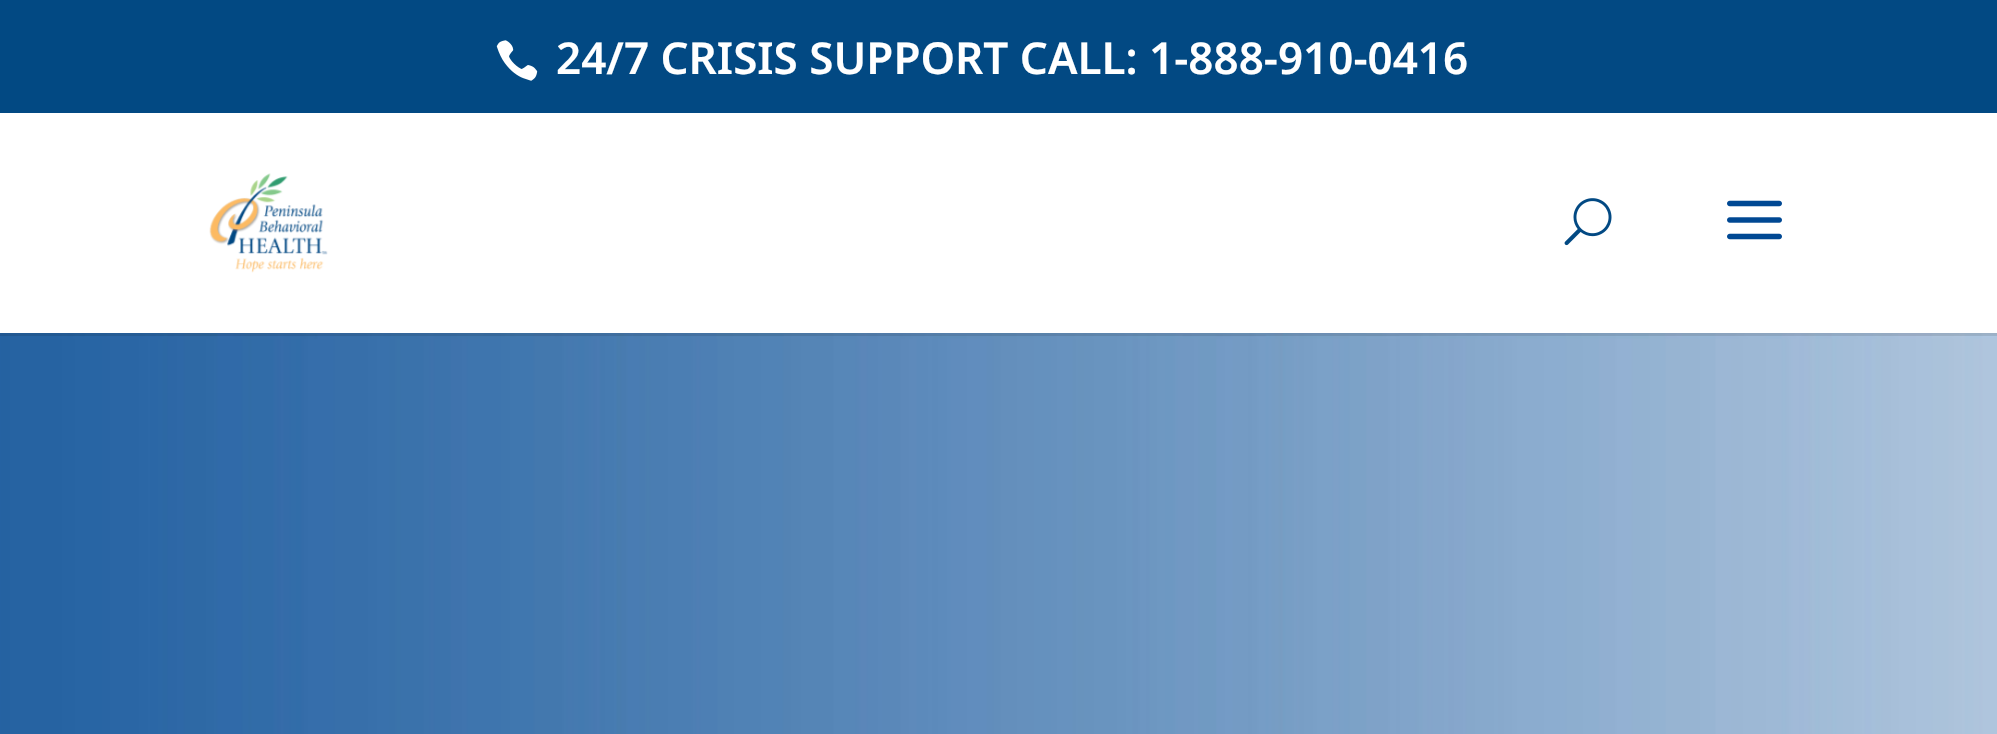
static SkFont makeFont(const char* family, int weight, float size, bool italic = false) {
  SkFontStyle style(weight, SkFontStyle::kNormal_Width,
    italic ? SkFontStyle::kItalic_Slant : SkFontStyle::kUpright_Slant);
  SkFont result(fontMgr->matchFamilyStyle(family, style), size);
  result.setSubpixel(true);
  return result;
}

static void text(SkCanvas* c, const char* s, float x, float y, const SkFont& font, SkColor color) {
  SkPaint ink(SkColor4f::FromColor(color));
  ink.setAntiAlias(true);
  c->drawString(s, x, y, font, ink);
}

static void box(SkCanvas* c, float l, float t, float r, float b, SkColor color) {
  SkPaint ink(SkColor4f::FromColor(color));
  ink.setAntiAlias(true);
  c->drawRect(SkRect::MakeLTRB(l, t, r, b), ink);
}

static void picture(SkCanvas* c, const char* path, float l, float t, float r, float b) {
  auto image = SkImages::DeferredFromEncodedData(SkData::MakeFromFileName(path));
  c->drawImageRect(image, SkRect::MakeLTRB(l, t, r, b), SkSamplingOptions());
}

void draw(SkCanvas* c) {
  SkPaint paint;
  paint.setAntiAlias(true);
  c->clear(0xffffffff);
  box(c, 0, 0, 1997, 113, 0xff024983);
  picture(c, "img_01.png", 496, 40, 538, 81);
  SkFont face1 = makeFont("Noto Sans", 600, 44);
  text(c, "24/7 CRISIS SUPPORT CALL: 1-888-910-0416", 556, 74, face1, 0xffffffff);
  picture(c, "img_05.png", 0, 333, 1997, 734);
  box(c, 0, 333, 1997, 336, 0x1a000000);
  picture(c, "img_02.png", 209, 173, 328, 273);
  picture(c, "img_03.png", 1564, 198, 1612, 246);
  picture(c, "img_04.png", 1727, 200, 1782, 240);
}
